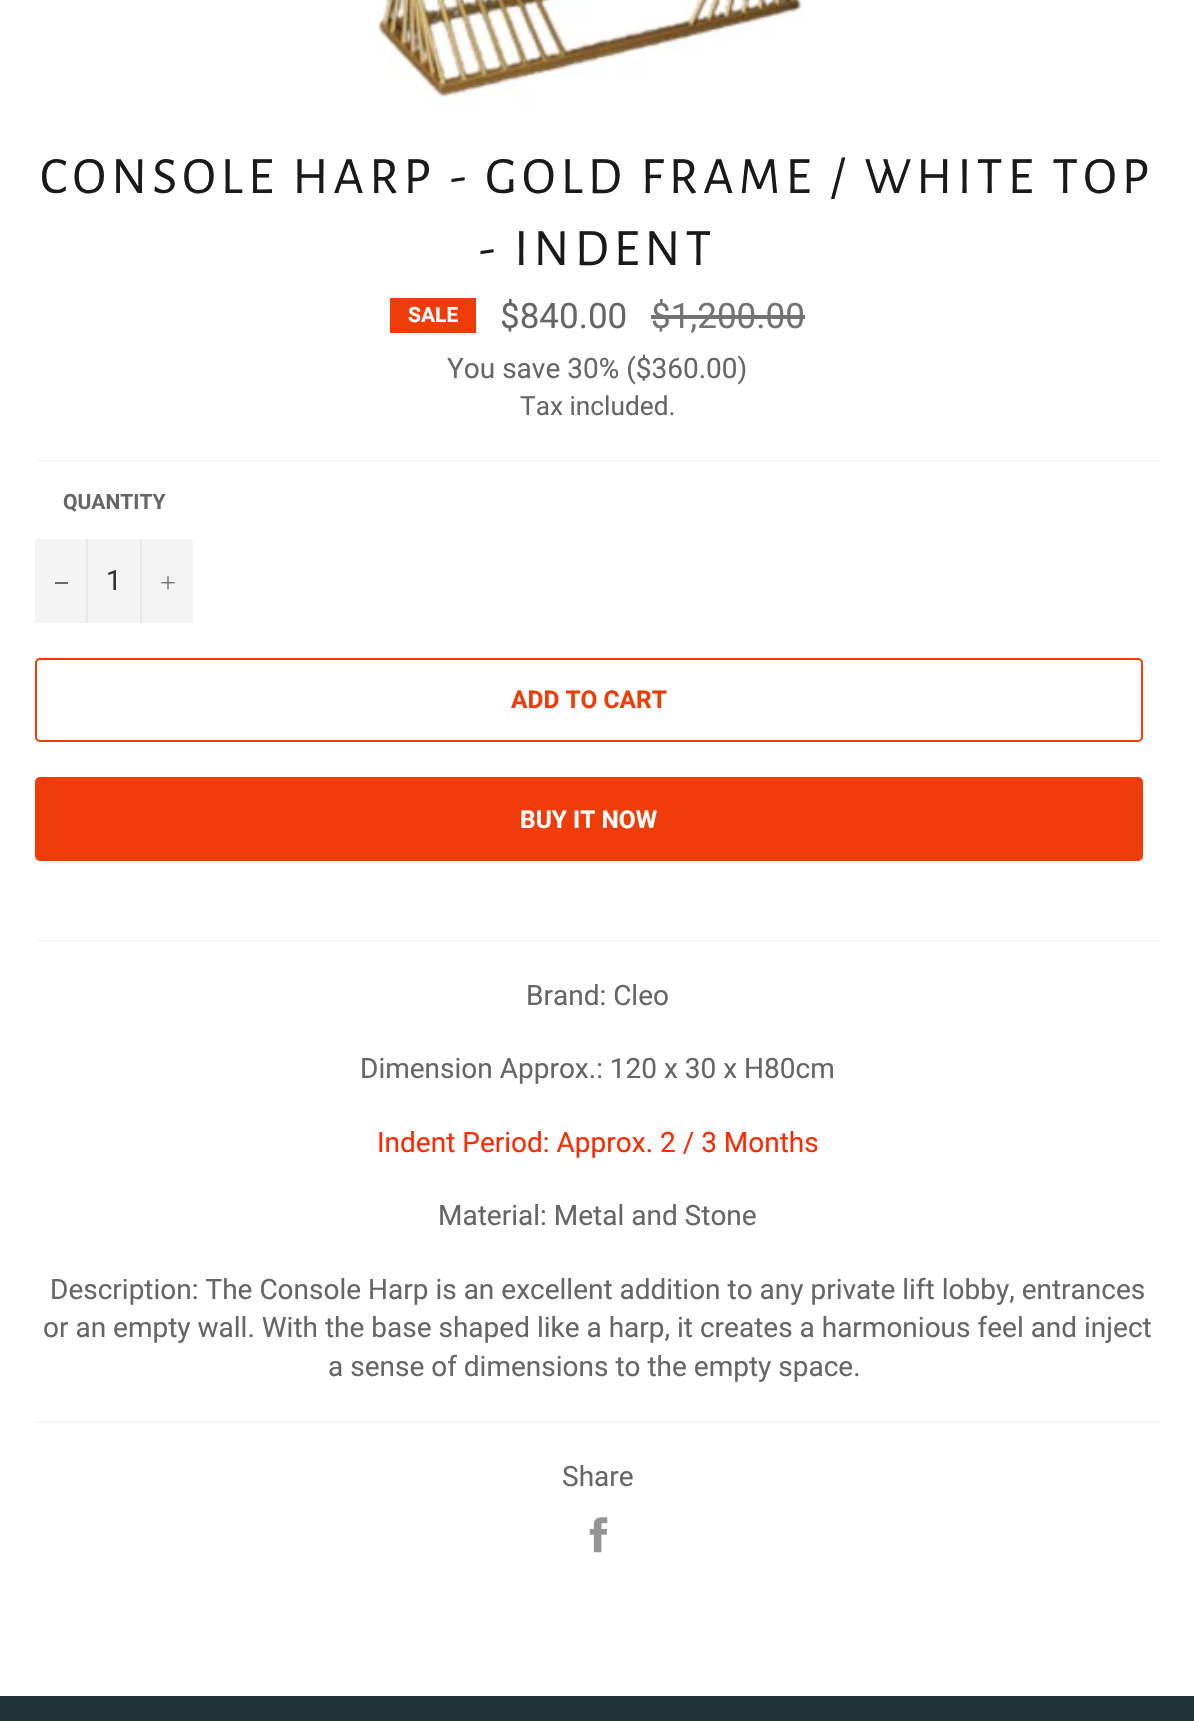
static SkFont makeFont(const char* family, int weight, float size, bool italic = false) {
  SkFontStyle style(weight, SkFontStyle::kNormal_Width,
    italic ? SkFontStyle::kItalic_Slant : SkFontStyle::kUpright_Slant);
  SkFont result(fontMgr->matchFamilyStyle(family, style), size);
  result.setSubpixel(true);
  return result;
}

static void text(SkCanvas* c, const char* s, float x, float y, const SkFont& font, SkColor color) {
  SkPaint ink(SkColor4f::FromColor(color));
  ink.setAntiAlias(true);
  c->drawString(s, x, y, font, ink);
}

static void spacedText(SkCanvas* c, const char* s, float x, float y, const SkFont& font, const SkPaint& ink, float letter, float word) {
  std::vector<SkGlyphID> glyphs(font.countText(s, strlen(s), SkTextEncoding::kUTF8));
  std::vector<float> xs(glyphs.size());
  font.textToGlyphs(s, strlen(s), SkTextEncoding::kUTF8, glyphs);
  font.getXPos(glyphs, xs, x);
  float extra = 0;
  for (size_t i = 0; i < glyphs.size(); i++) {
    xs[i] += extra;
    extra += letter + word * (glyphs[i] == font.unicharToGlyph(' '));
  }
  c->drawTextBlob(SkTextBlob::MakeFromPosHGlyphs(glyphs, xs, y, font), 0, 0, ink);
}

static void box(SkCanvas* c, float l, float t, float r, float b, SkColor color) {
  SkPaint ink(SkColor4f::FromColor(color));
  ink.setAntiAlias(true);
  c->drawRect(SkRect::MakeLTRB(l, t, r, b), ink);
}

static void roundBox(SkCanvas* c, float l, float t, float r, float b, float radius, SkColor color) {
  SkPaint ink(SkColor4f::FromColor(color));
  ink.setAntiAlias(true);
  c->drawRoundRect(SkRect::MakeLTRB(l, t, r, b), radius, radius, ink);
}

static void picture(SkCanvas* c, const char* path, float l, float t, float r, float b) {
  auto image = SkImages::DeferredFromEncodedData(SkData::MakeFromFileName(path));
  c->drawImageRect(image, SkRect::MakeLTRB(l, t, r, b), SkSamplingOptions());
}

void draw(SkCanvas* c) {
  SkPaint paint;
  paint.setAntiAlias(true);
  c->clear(0xffffffff);
  picture(c, "img_01.png", 377, 0, 804, 106);
  SkFont face1 = makeFont("Alegreya Sans", 400, 52.5f);
  paint.setColor(0xff1a1a1a);
  spacedText(c, "CONSOLE HARP - GOLD FRAME / WHITE TOP", 40, 193, face1, paint, 5.25f, 0);
  spacedText(c, "- INDENT", 479, 265, face1, paint, 5.25f, 0);
  box(c, 390, 298, 476, 333, 0xfff03c09);
  SkFont face2 = makeFont("Roboto", 700, 21);
  text(c, "SALE", 408, 322, face2, 0xffffffff);
  SkFont face3 = makeFont("Roboto", 400, 35);
  text(c, "$840.00", 500, 328, face3, 0xff666666);
  text(c, "$1,200.00", 651, 328, face3, 0xff737373);
  box(c, 651, 315, 805, 319, 0xff737373);
  SkFont face4 = makeFont("Roboto", 400, 28);
  text(c, "You save 30% ($360.00)", 447, 378, face4, 0xff666666);
  SkFont face5 = makeFont("Roboto", 400, 26.25f);
  text(c, "Tax included.", 520, 415, face5, 0xff666666);
  box(c, 35, 460, 1160, 462, 0xfff7f7f7);
  text(c, "QUANTITY", 63, 509, face2, 0xff666666);
  box(c, 35, 539, 193, 623, 0xfff4f4f4);
  box(c, 86, 539, 88, 623, 0xffe7e7e7);
  box(c, 55, 582, 68, 584, 0xff666666);
  text(c, "1", 106, 590, face4, 0xff333333);
  box(c, 140, 539, 142, 623, 0xffe7e7e7);
  picture(c, "img_02.png", 161, 576, 175, 590);
  paint.setStyle(SkPaint::kStroke_Style);
  paint.setStrokeWidth(2);
  paint.setColor(0xfff03c09);
  c->drawRoundRect(SkRect::MakeLTRB(36, 659, 1142, 741), 4, 4, paint);
  SkFont face6 = makeFont("Roboto", 700, 24.5f);
  text(c, "ADD TO CART", 511, 708, face6, 0xfff03c09);
  roundBox(c, 35, 777, 1143, 861, 5, 0xfff03c09);
  text(c, "BUY IT NOW", 520, 828, face6, 0xffffffff);
  box(c, 35, 940, 1160, 942, 0xfff7f7f7);
  text(c, "Brand: Cleo", 526, 1005, face4, 0xff666666);
  text(c, "Dimension Approx.: 120 x 30 x H80cm", 360, 1078, face4, 0xff666666);
  text(c, "Indent Period: Approx. 2 / 3 Months", 377, 1152, face4, 0xffff2a00);
  text(c, "Material: Metal and Stone", 438, 1225, face4, 0xff666666);
  text(c, "Description: The Console Harp is an excellent addition to any private lift lobby, entrances", 50, 1299, face4, 0xff666666);
  text(c, "or an empty wall. With the base shaped like a harp, it creates a harmonious feel and inject", 43, 1337, face4, 0xff666666);
  text(c, "a sense of dimensions to the empty space.", 328, 1376, face4, 0xff666666);
  box(c, 35, 1421, 1160, 1423, 0xfff7f7f7);
  text(c, "Share", 562, 1486, face4, 0xff666666);
  picture(c, "img_03.png", 589, 1517, 608, 1553);
  box(c, 0, 1696, 1194, 1721, 0xff213236);
}
